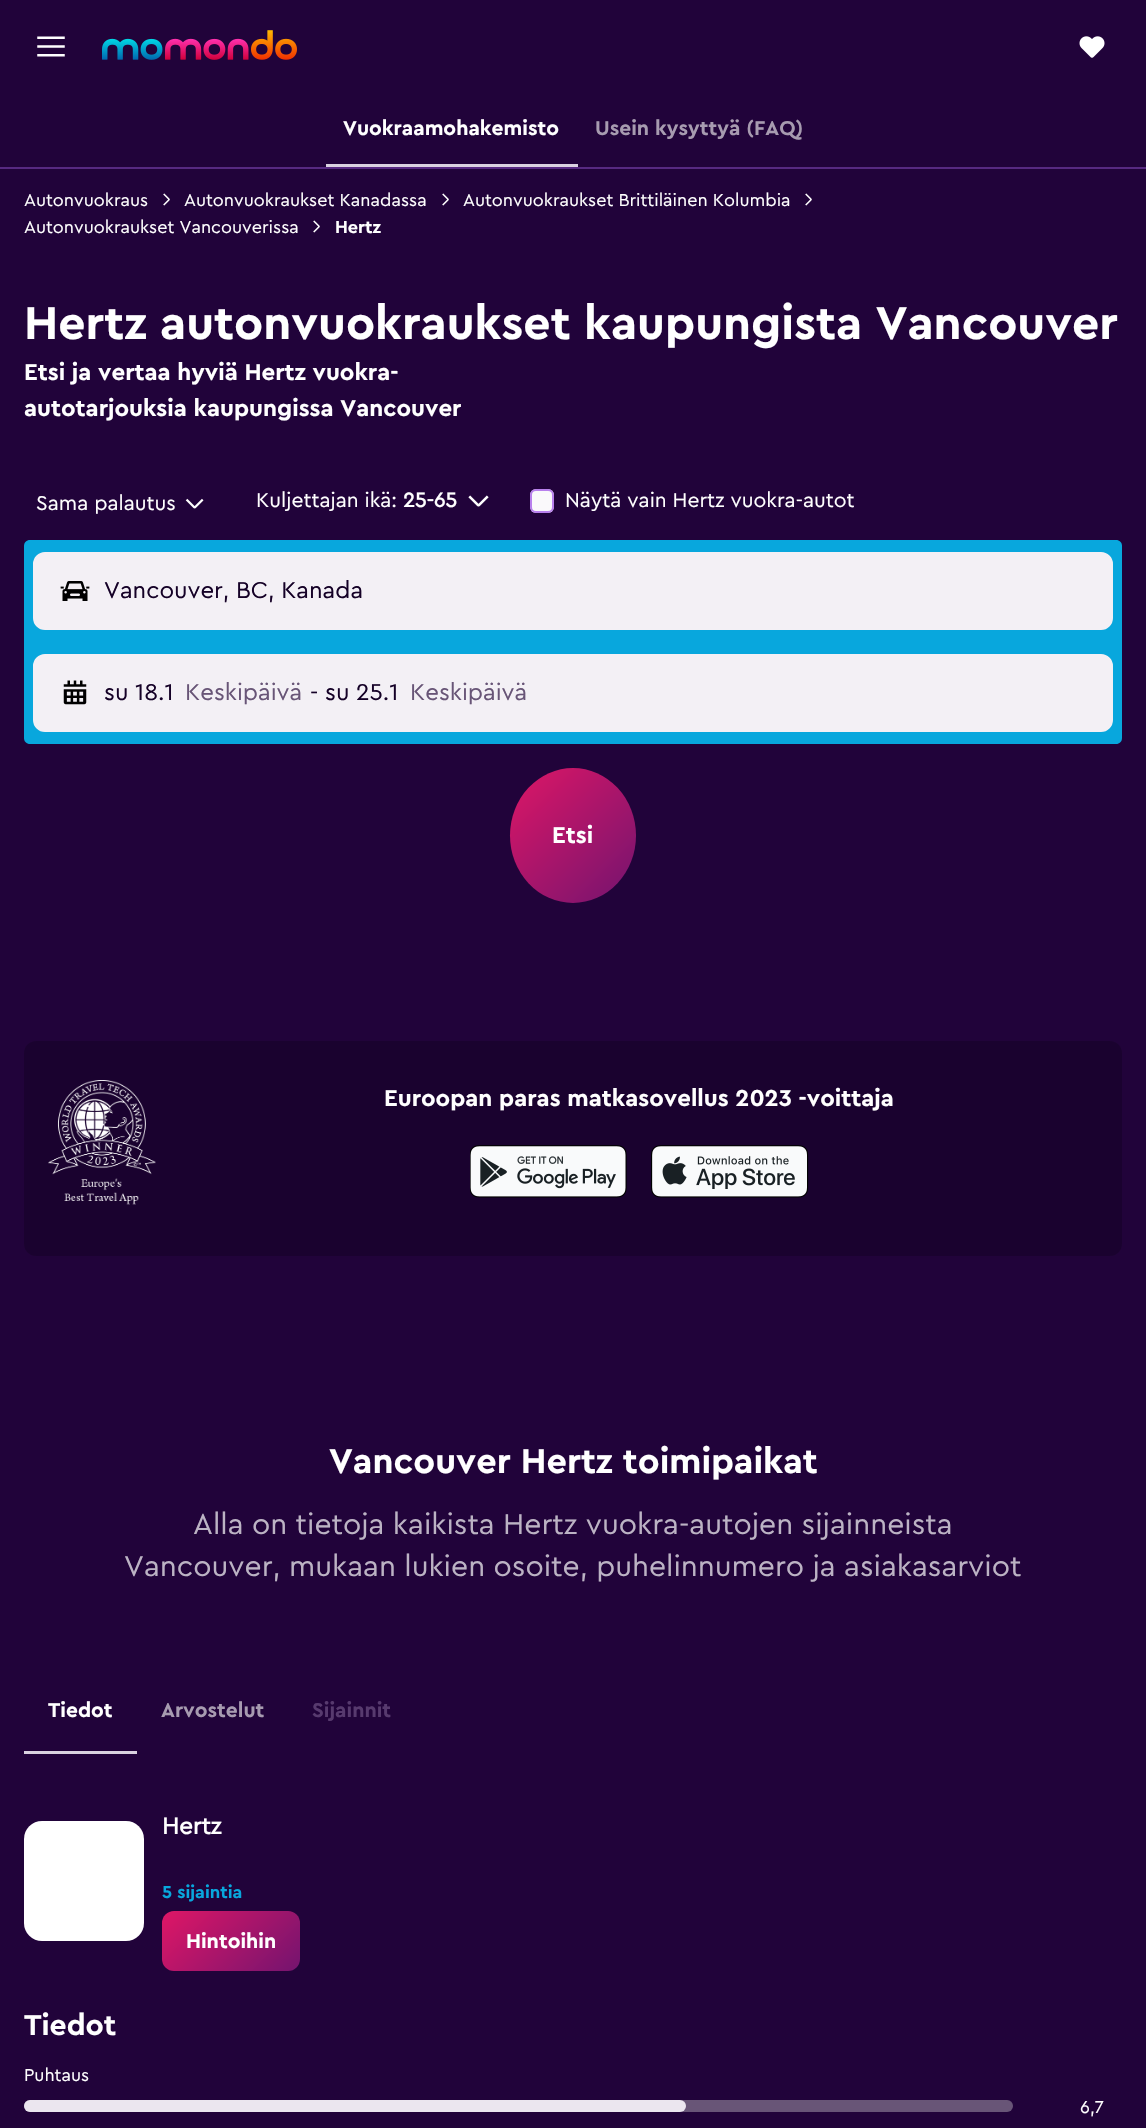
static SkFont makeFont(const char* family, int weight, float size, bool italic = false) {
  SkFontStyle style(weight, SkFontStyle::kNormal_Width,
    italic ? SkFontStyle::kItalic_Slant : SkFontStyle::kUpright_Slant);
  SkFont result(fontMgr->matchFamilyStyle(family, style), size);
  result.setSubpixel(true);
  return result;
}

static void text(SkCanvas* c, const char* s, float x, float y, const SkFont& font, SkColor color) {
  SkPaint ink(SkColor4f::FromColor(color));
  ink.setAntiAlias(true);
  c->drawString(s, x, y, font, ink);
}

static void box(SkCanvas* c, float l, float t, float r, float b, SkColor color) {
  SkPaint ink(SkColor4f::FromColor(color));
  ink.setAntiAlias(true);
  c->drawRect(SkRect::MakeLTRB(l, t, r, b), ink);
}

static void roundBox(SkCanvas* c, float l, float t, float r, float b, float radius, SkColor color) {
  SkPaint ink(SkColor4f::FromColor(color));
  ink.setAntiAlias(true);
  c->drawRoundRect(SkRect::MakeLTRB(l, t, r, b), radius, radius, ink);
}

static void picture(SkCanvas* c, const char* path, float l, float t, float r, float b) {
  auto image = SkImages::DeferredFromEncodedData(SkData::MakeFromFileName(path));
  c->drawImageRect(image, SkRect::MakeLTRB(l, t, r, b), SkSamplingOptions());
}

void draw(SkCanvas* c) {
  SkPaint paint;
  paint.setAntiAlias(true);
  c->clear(0xff21033a);
  picture(c, "img_01.png", 37, 36, 65, 57);
  picture(c, "img_02.png", 102, 30, 297, 60);
  picture(c, "img_03.png", 1079, 36, 1105, 58);
  box(c, 0, 167, 1146, 169, 0x66a762ea);
  box(c, 326, 164, 578, 167, 0xffdad2e0);
  SkFont face1 = makeFont("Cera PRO", 700, 21);
  text(c, "Vuokraamohakemisto", 343, 135, face1, 0xffffffff);
  text(c, "Usein kysyttyä (FAQ)", 595, 135, face1, 0xffa79bb0);
  SkFont face2 = makeFont("Cera PRO", 400, 18);
  text(c, "Autonvuokraus", 24, 206, face2, 0xffffffff);
  picture(c, "img_04.png", 163, 193, 170, 206);
  text(c, "Autonvuokraukset Kanadassa", 184, 206, face2, 0xffffffff);
  picture(c, "img_04.png", 442, 193, 449, 206);
  text(c, "Autonvuokraukset Brittiläinen Kolumbia", 463, 206, face2, 0xffffffff);
  picture(c, "img_04.png", 805, 193, 812, 206);
  text(c, "Autonvuokraukset Vancouverissa", 24, 233, face2, 0xffffffff);
  picture(c, "img_04.png", 313, 220, 320, 233);
  SkFont face3 = makeFont("Cera PRO", 700, 18);
  text(c, "Hertz", 335, 233, face3, 0xffffffff);
  SkFont face4 = makeFont("Cera PRO", 700, 48);
  text(c, "Hertz autonvuokraukset kaupungista Vancouver", 24, 339, face4, 0xffffffff);
  SkFont face5 = makeFont("Cera PRO", 700, 24);
  text(c, "Etsi ja vertaa hyviä Hertz vuokra-", 24, 380, face5, 0xffffffff);
  text(c, "autotarjouksia kaupungissa Vancouver", 24, 416, face5, 0xffffffff);
  SkFont face6 = makeFont("Cera PRO", 400, 21);
  text(c, "Sama palautus", 36, 510, face6, 0xffffffff);
  picture(c, "img_05.png", 185, 498, 204, 509);
  text(c, "Kuljettajan ikä:", 256, 507, face6, 0xffffffff);
  c->save();
  c->clipRect(SkRect::MakeLTRB(257, 486, 458, 516));
  SkFont face7 = makeFont("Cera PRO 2", 700, 21);
  text(c, "25-65", 403, 507, face7, 0xffffffff);
  c->restore();
  picture(c, "img_06.png", 468, 495, 489, 507);
  roundBox(c, 530, 489, 554, 513, 6, 0xfffaf9fb);
  paint.setStyle(SkPaint::kStroke_Style);
  paint.setStrokeWidth(2);
  paint.setColor(0xcca762ea);
  c->drawRoundRect(SkRect::MakeLTRB(531, 490, 553, 512), 5, 5, paint);
  text(c, "Näytä vain Hertz vuokra-autot", 565, 507, face6, 0xffffffff);
  paint.setStyle(SkPaint::kFill_Style);
  paint.setColor(0xff08a7dd);
  c->drawPath(SkPathBuilder().moveTo(30, 540).lineTo(1116, 540).cubicTo(1119.5f, 540, 1122, 542.5f, 1122, 546).lineTo(1122, 642).lineTo(24, 642).lineTo(24, 546).cubicTo(24, 542.5f, 26.5f, 540, 30, 540).close().detach(), paint);
  paint.setColor(0xfff3f0f5);
  c->drawRoundRect(SkRect::MakeLTRB(34, 553, 1112, 629), 11, 11, paint);
  paint.setStyle(SkPaint::kStroke_Style);
  c->drawRoundRect(SkRect::MakeLTRB(34, 553, 1112, 629), 11, 11, paint);
  picture(c, "img_07.png", 60, 581, 90, 601);
  SkFont face8 = makeFont("Cera PRO", 400, 24);
  text(c, "Vancouver, BC, Kanada", 104, 598, face8, 0xff150127);
  paint.setStyle(SkPaint::kFill_Style);
  paint.setColor(0xff08a7dd);
  c->drawPath(SkPathBuilder().moveTo(24, 642).lineTo(1122, 642).lineTo(1122, 738).cubicTo(1122, 741.5f, 1119.5f, 744, 1116, 744).lineTo(30, 744).cubicTo(26.5f, 744, 24, 741.5f, 24, 738).close().detach(), paint);
  paint.setColor(0xfff3f0f5);
  c->drawRoundRect(SkRect::MakeLTRB(34, 655, 1112, 731), 11, 11, paint);
  paint.setStyle(SkPaint::kStroke_Style);
  c->drawRoundRect(SkRect::MakeLTRB(34, 655, 1112, 731), 11, 11, paint);
  picture(c, "img_08.png", 63, 680, 87, 705);
  text(c, "su 18.1", 104, 700, face8, 0xff150127);
  text(c, "Keskipäivä", 185, 700, face8, 0xff685577);
  text(c, "-", 310, 700, face8, 0xff150127);
  text(c, "su 25.1", 325, 700, face8, 0xff150127);
  text(c, "Keskipäivä", 410, 700, face8, 0xff685577);
  paint.setStyle(SkPaint::kFill_Style);
  {
    const SkColor colors[] = {0xffde1666, 0xff73146f};
    const float stops[] = {0, 1};
    const SkPoint ends[] = {{508, 770}, {638, 901}};
    paint.setShader(SkGradientShader::MakeLinear(ends, colors, stops, 2, SkTileMode::kClamp));
    paint.setAlpha(255);
  }
  c->drawOval(SkRect::MakeLTRB(510, 768, 636, 903), paint);
  text(c, "Etsi", 552, 843, face5, 0xffffffff);
  roundBox(c, 24, 1041, 1122, 1256, 12, 0xff1a022f);
  picture(c, "img_09.png", 48, 1080, 156, 1205);
  text(c, "Euroopan paras matkasovellus 2023 -voittaja", 384, 1106, face5, 0xffffffff);
  picture(c, "img_10.png", 470, 1145, 627, 1198);
  picture(c, "img_11.png", 651, 1145, 809, 1198);
  SkFont face9 = makeFont("Cera PRO", 700, 36);
  text(c, "Vancouver Hertz toimipaikat", 329, 1473, face9, 0xffffffff);
  SkFont face10 = makeFont("Cera PRO", 400, 30);
  text(c, "Alla on tietoja kaikista Hertz vuokra-autojen sijainneista", 193, 1534, face10, 0xffbcb3c4);
  text(c, "Vancouver, mukaan lukien osoite, puhelinnumero ja asiakasarviot", 124, 1576, face10, 0xffbcb3c4);
  box(c, 24, 1751, 137, 1754, 0xffdad2e0);
  text(c, "Tiedot", 48, 1717, face1, 0xffffffff);
  text(c, "Arvostelut", 161, 1717, face1, 0xffa79bb0);
  text(c, "Sijainnit", 312, 1717, face1, 0xff573a6e);
  roundBox(c, 24, 1821, 144, 1941, 18, 0xffffffff);
  SkFont face11 = makeFont("Cera PRO 2", 700, 24);
  text(c, "Hertz", 162, 1834, face11, 0xffffffff);
  text(c, "5 sijaintia", 162, 1898, face3, 0xff08a7dd);
  {
    const SkColor colors[] = {0xffde1666, 0xff73146f};
    const float stops[] = {0, 1};
    const SkPoint ends[] = {{182, 1892}, {281, 1991}};
    paint.setShader(SkGradientShader::MakeLinear(ends, colors, stops, 2, SkTileMode::kClamp));
    paint.setAlpha(255);
  }
  c->drawRoundRect(SkRect::MakeLTRB(162, 1911, 300, 1971), 12, 12, paint);
  text(c, "Hintoihin", 186, 1948, face1, 0xffffffff);
  SkFont face12 = makeFont("Cera PRO", 700, 30);
  text(c, "Tiedot", 24, 2035, face12, 0xffffffff);
  text(c, "Puhtaus", 24, 2081, face2, 0xffffffff);
  roundBox(c, 24, 2100, 1013, 2112, 6, 0xff685577);
  roundBox(c, 24, 2100, 686, 2112, 6, 0xffebe6ef);
  text(c, "6,7", 1080, 2113, face2, 0xffffffff);
}
